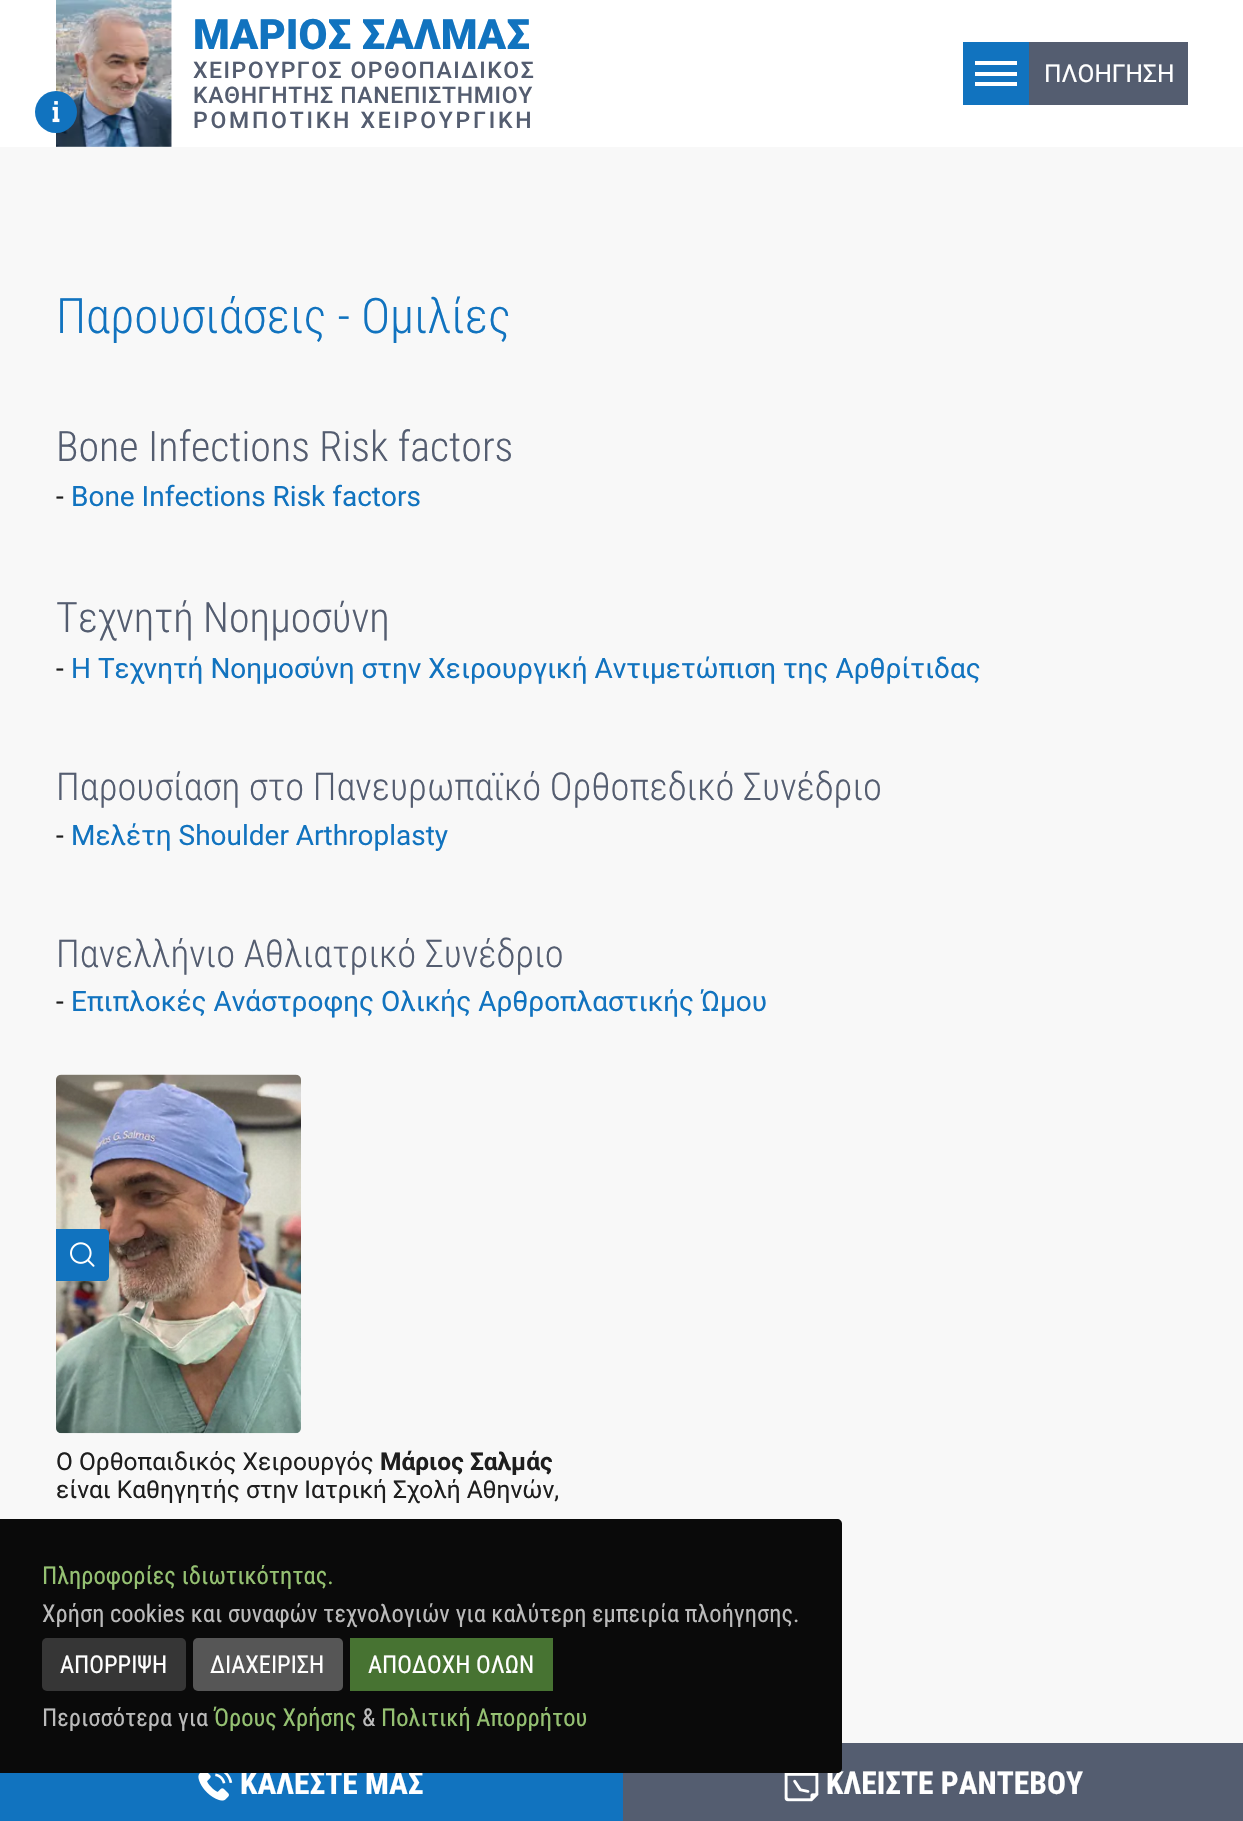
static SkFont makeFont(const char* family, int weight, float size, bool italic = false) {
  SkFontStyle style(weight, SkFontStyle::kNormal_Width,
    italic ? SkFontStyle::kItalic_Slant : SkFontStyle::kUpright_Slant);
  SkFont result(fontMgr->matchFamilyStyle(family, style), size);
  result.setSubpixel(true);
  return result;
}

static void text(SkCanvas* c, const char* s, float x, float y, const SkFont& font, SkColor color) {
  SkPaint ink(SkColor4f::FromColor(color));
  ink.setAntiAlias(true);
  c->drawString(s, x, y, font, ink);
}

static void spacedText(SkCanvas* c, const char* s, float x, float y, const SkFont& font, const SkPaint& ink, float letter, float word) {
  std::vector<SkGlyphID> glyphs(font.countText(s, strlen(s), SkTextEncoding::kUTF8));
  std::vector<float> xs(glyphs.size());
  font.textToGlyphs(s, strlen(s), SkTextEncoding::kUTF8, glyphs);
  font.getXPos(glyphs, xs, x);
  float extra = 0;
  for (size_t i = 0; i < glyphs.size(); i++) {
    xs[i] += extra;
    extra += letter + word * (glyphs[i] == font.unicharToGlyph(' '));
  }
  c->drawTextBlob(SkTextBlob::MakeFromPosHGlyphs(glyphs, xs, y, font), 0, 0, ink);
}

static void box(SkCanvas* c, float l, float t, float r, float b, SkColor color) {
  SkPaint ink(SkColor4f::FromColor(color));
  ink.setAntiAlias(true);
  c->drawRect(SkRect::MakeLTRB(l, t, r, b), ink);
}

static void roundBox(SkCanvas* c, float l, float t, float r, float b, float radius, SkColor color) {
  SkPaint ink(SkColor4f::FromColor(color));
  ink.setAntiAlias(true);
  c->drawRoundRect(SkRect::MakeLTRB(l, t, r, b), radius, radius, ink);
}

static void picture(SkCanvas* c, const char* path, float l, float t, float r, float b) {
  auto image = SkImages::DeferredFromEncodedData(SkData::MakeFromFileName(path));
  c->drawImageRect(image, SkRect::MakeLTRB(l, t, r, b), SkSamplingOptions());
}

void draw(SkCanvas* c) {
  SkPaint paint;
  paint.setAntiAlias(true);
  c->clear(0xfff8f8f8);
  box(c, 0, 0, 1243, 147, 0xffffffff);
  picture(c, "img_01.png", 56, 0, 172, 147);
  SkFont face1 = makeFont("Roboto", 900, 42);
  text(c, "ΜΑΡΙΟΣ ΣΑΛΜΑΣ", 193, 49, face1, 0xff1173bf);
  SkFont face2 = makeFont("Roboto", 500, 23);
  paint.setColor(0xff545d70);
  spacedText(c, "ΧΕΙΡΟΥΡΓΟΣ ΟΡΘΟΠAIΔΙΚΟΣ", 193, 78, face2, paint, 1.5f, 0);
  spacedText(c, "ΚΑΘΗΓΗΤΗΣ ΠΑΝΕΠΙΣΤΗΜΙΟΥ", 193, 103, face2, paint, 0.7f, 0);
  spacedText(c, "ΡΟΜΠΟΤΙΚΗ ΧΕΙΡΟΥΡΓΙΚΗ", 193, 128, face2, paint, 2.75f, 0);
  box(c, 963, 42, 1029, 105, 0xff1173bf);
  box(c, 975, 61, 1017, 65, 0xffffffff);
  box(c, 975, 72, 1017, 76, 0xffffffff);
  box(c, 975, 82, 1017, 86, 0xffffffff);
  box(c, 1029, 42, 1188, 105, 0xff545d70);
  SkFont face3 = makeFont("Roboto", 400, 24.5f);
  text(c, "ΠΛΟΗΓΗΣΗ", 1044, 82, face3, 0xffffffff);
  paint.setColor(0xff1173bf);
  c->drawCircle(56, 112, 21, paint);
  picture(c, "img_02.png", 52, 101, 60, 123);
  SkFont face4 = makeFont("Roboto Condensed", 300, 49);
  text(c, "Παρουσιάσεις - Ομιλίες", 56, 333, face4, 0xff1173bf);
  SkFont face5 = makeFont("Roboto Condensed", 300, 42);
  text(c, "Bone Infections Risk factors", 56, 461, face5, 0xff545d70);
  SkFont face6 = makeFont("Roboto", 400, 28);
  text(c, "-", 56, 506, face6, 0xff1e1e1e);
  text(c, "Bone Infections Risk factors", 71, 506, face6, 0xff1173bf);
  text(c, "Τεχνητή Νοημοσύνη", 56, 632, face5, 0xff545d70);
  text(c, "-", 56, 678, face6, 0xff1e1e1e);
  text(c, "H Τεχνητή Νοημοσύνη στην Χειρουργική Αντιμετώπιση της Αρθρίτιδας", 71, 678, face6, 0xff1173bf);
  SkFont face7 = makeFont("Roboto Condensed", 300, 38.5f);
  text(c, "Παρουσίαση στο Πανευρωπαϊκό Ορθοπεδικό Συνέδριο", 56, 800, face7, 0xff545d70);
  text(c, "-", 56, 845, face6, 0xff1e1e1e);
  text(c, "Μελέτη Shoulder Arthroplasty", 71, 845, face6, 0xff1173bf);
  text(c, "Πανελλήνιο Αθλιατρικό Συνέδριο", 56, 967, face7, 0xff545d70);
  text(c, "-", 56, 1011, face6, 0xff1e1e1e);
  text(c, "Επιπλοκές Ανάστροφης Ολικής Αρθροπλαστικής Ώμου", 71, 1011, face6, 0xff1173bf);
  picture(c, "img_03.png", 56, 1074, 301, 1434);
  {
    const SkColor colors[] = {0x00000000, 0x0d000000, 0x26000000, 0x40000000};
    const float stops[] = {0.6f, 0.75f, 0.85f, 1};
    paint.setShader(SkGradientShader::MakeRadial({179, 1254}, 239, colors, stops, 4, SkTileMode::kClamp));
    paint.setAlpha(255);
  }
  c->drawRoundRect(SkRect::MakeLTRB(56, 1075, 301, 1433), 5, 5, paint);
  picture(c, "img_04.png", 56, 1082, 301, 1428);
  paint.setShader(nullptr);
  paint.setColor(0xff1173bf);
  c->drawPath(SkPathBuilder().moveTo(56, 1229).lineTo(104, 1229).cubicTo(107, 1229, 109, 1231, 109, 1234).lineTo(109, 1276).cubicTo(109, 1279, 107, 1281, 104, 1281).lineTo(56, 1281).close().detach(), paint);
  picture(c, "img_05.png", 70, 1242, 95, 1267);
  text(c, "Ο Ορθοπαιδικός Χειρουργός", 56, 1470, face3, 0xff1e1e1e);
  SkFont face8 = makeFont("Roboto", 700, 24.5f);
  text(c, "Μάριος Σαλμάς", 380, 1470, face8, 0xff1e1e1e);
  text(c, "είναι Καθηγητής στην Ιατρική Σχολή Αθηνών,", 56, 1498, face3, 0xff1e1e1e);
  box(c, 0, 1773, 623, 1821, 0xff1173bf);
  SkFont face9 = makeFont("Roboto Condensed", 700, 31.5f);
  text(c, "ΚΑΛΕΣΤΕ ΜΑΣ", 240, 1794, face9, 0xffffffff);
  box(c, 623, 1743, 1243, 1821, 0xff545d70);
  text(c, "ΚΛΕΙΣΤΕ ΡΑΝΤΕΒΟΥ", 826, 1794, face9, 0xffffffff);
  paint.setColor(0xff0a0a0a);
  c->drawPath(SkPathBuilder().moveTo(0, 1519).lineTo(837, 1519).cubicTo(840, 1519, 842, 1521, 842, 1524).lineTo(842, 1768).cubicTo(842, 1771, 840, 1773, 837, 1773).lineTo(0, 1773).close().detach(), paint);
  SkFont face10 = makeFont("Roboto Condensed", 400, 24.5f);
  text(c, "Πληροφορίες ιδιωτικότητας.", 42, 1584, face10, 0xff95c172);
  text(c, "Χρήση cookies και συναφών τεχνολογιών για καλύτερη εμπειρία πλοήγησης.", 42, 1622, face10, 0xffbbbbbb);
  roundBox(c, 42, 1638, 186, 1691, 5, 0xff363636);
  text(c, "ΑΠΟΡΡΙΨΗ", 60, 1673, face10, 0xffffffff);
  roundBox(c, 193, 1638, 343, 1691, 5, 0xff565656);
  text(c, "ΔΙΑΧΕΙΡΙΣΗ", 210, 1673, face10, 0xffffffff);
  box(c, 350, 1638, 553, 1691, 0xff477332);
  text(c, "ΑΠΟΔΟΧΗ ΟΛΩΝ", 368, 1673, face10, 0xffffffff);
  text(c, "Περισσότερα για", 42, 1726, face10, 0xffbbbbbb);
  text(c, "Όρους Χρήσης", 214, 1726, face10, 0xff95c172);
  text(c, "&", 362, 1726, face10, 0xffbbbbbb);
  text(c, "Πολιτική Απορρήτου", 381, 1726, face10, 0xff95c172);
  picture(c, "img_06.png", 198, 1773, 233, 1801);
  picture(c, "img_07.png", 784, 1773, 819, 1802);
}
